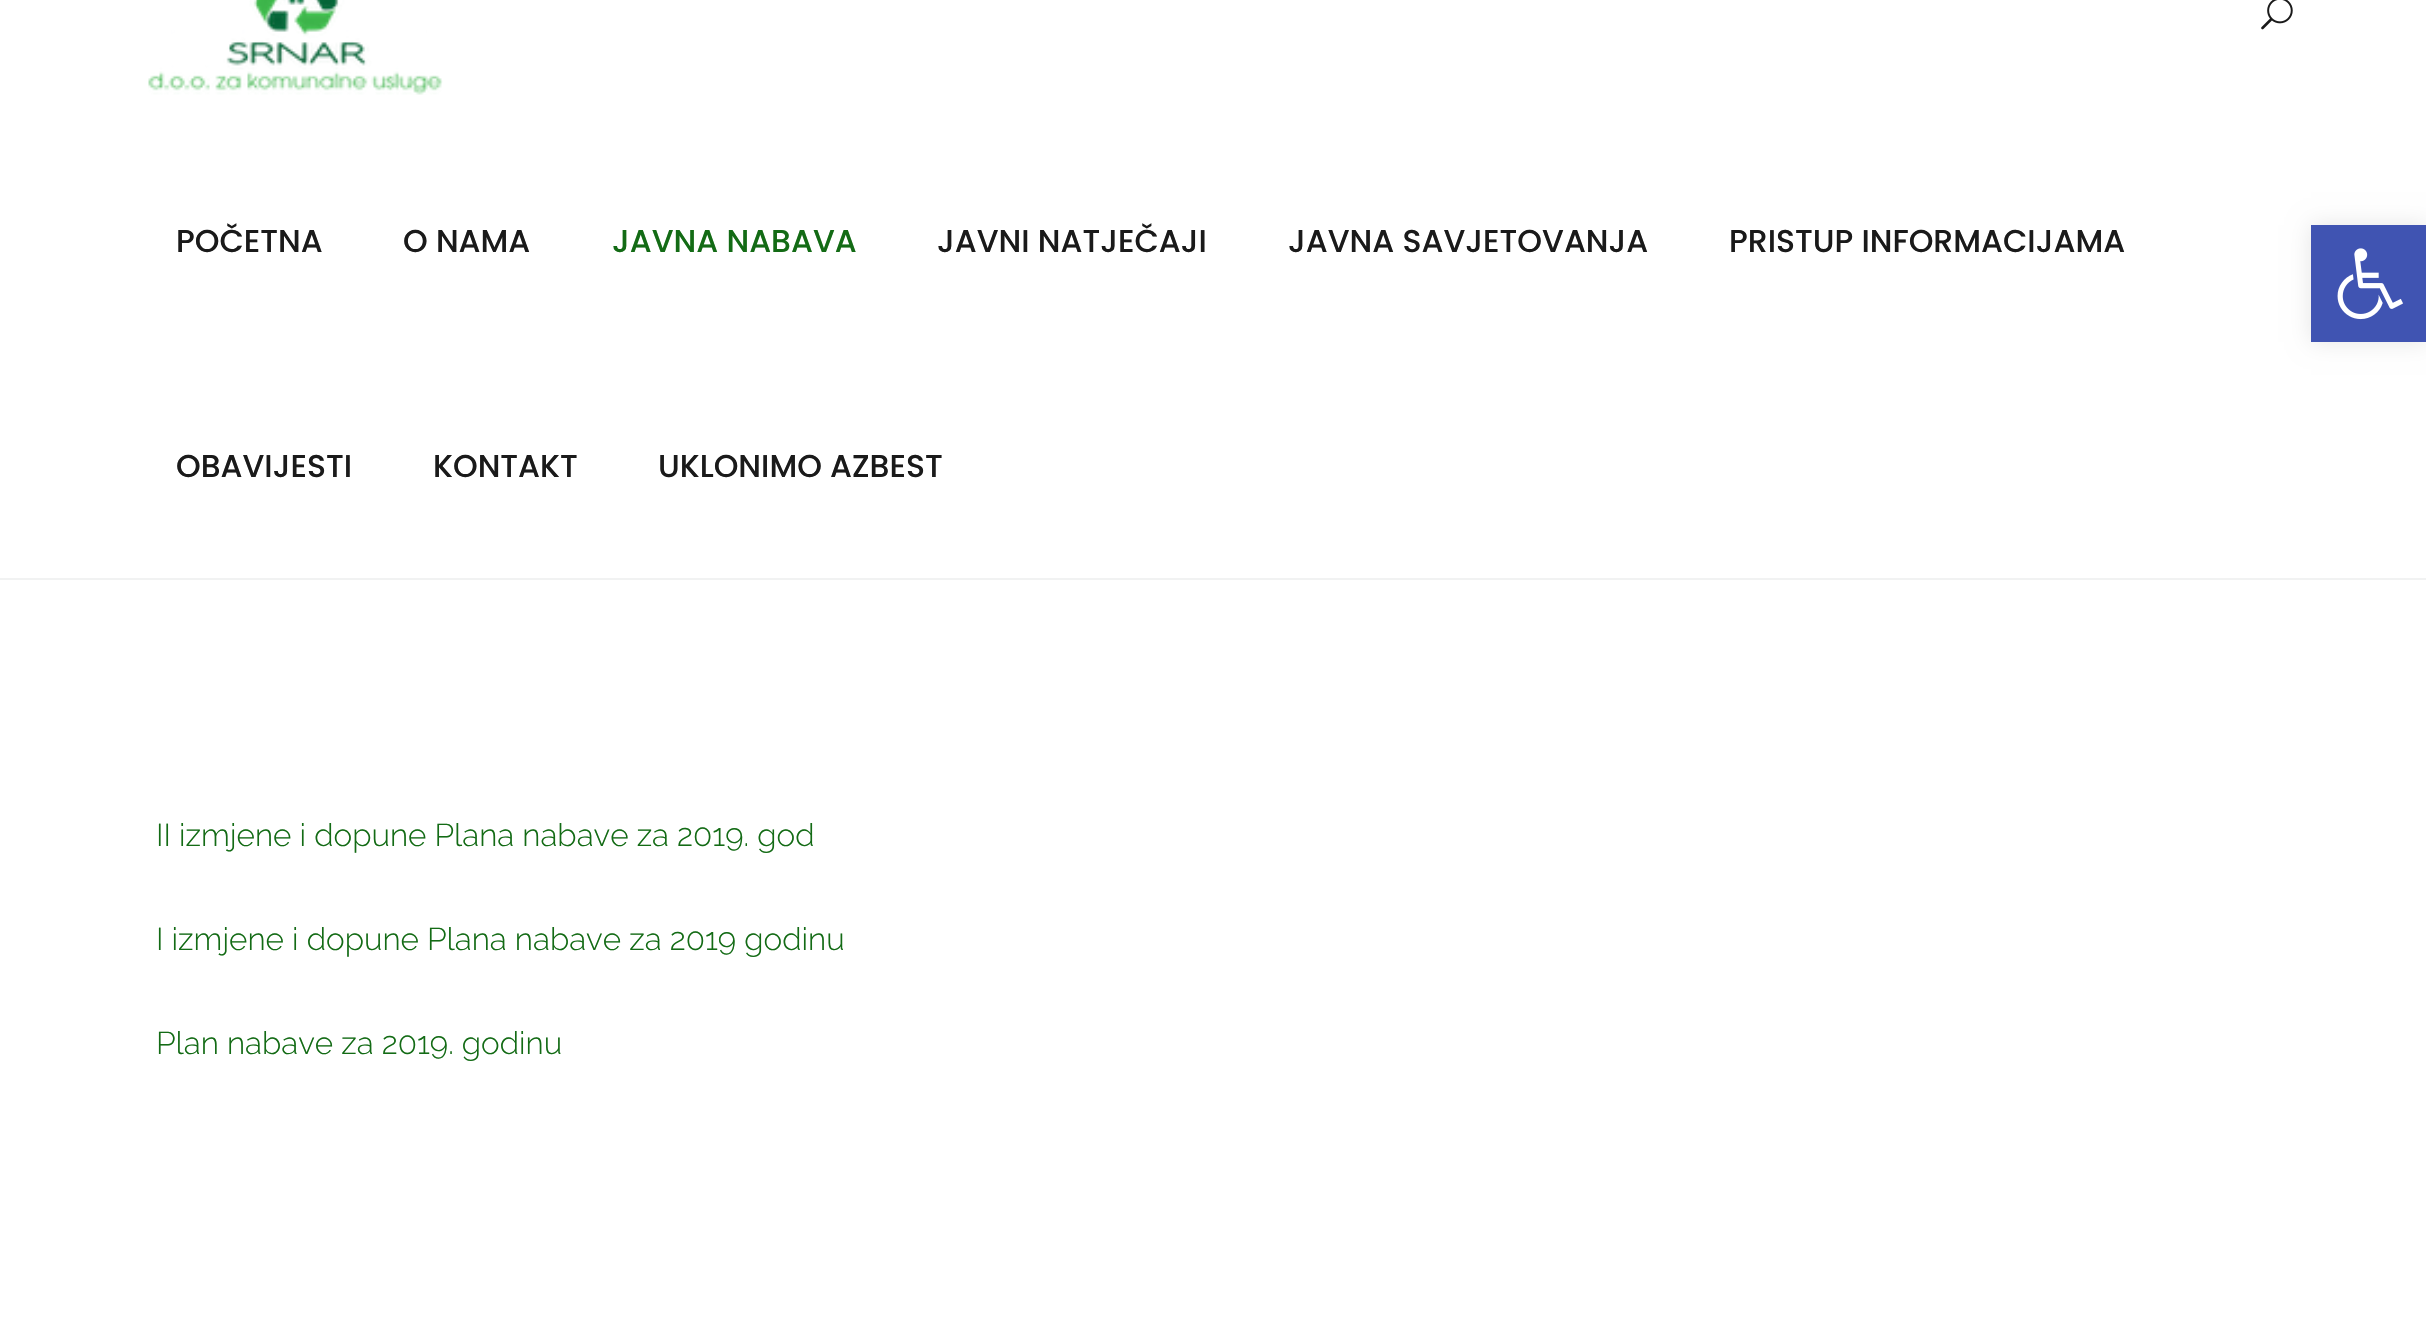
static SkFont makeFont(const char* family, int weight, float size, bool italic = false) {
  SkFontStyle style(weight, SkFontStyle::kNormal_Width,
    italic ? SkFontStyle::kItalic_Slant : SkFontStyle::kUpright_Slant);
  SkFont result(fontMgr->matchFamilyStyle(family, style), size);
  result.setSubpixel(true);
  return result;
}

static void text(SkCanvas* c, const char* s, float x, float y, const SkFont& font, SkColor color) {
  SkPaint ink(SkColor4f::FromColor(color));
  ink.setAntiAlias(true);
  c->drawString(s, x, y, font, ink);
}

static void box(SkCanvas* c, float l, float t, float r, float b, SkColor color) {
  SkPaint ink(SkColor4f::FromColor(color));
  ink.setAntiAlias(true);
  c->drawRect(SkRect::MakeLTRB(l, t, r, b), ink);
}

static void picture(SkCanvas* c, const char* path, float l, float t, float r, float b) {
  auto image = SkImages::DeferredFromEncodedData(SkData::MakeFromFileName(path));
  c->drawImageRect(image, SkRect::MakeLTRB(l, t, r, b), SkSamplingOptions());
}

void draw(SkCanvas* c) {
  SkPaint paint;
  paint.setAntiAlias(true);
  c->clear(0xffffffff);
  box(c, 0, 578, 2426, 580, 0xfff1f2f2);
  picture(c, "img_01.png", 148, 0, 443, 95);
  picture(c, "img_02.png", 2261, 0, 2293, 30);
  SkFont face1 = makeFont("Poppins", 500, 31.5f);
  text(c, "POČETNA", 176, 252, face1, 0xff1a1a1a);
  text(c, "O NAMA", 403, 252, face1, 0xff1a1a1a);
  text(c, "JAVNA NABAVA", 612, 252, face1, 0xff136b15);
  text(c, "JAVNI NATJEČAJI", 937, 252, face1, 0xff1a1a1a);
  text(c, "JAVNA SAVJETOVANJA", 1288, 252, face1, 0xff1a1a1a);
  text(c, "PRISTUP INFORMACIJAMA", 1729, 252, face1, 0xff1a1a1a);
  text(c, "OBAVIJESTI", 176, 477, face1, 0xff1a1a1a);
  text(c, "KONTAKT", 433, 477, face1, 0xff1a1a1a);
  text(c, "UKLONIMO AZBEST", 658, 477, face1, 0xff1a1a1a);
  SkFont face2 = makeFont("Raleway", 300, 31.5f);
  text(c, "II izmjene i dopune Plana nabave za 2019. god", 156, 846, face2, 0xff136b15);
  text(c, "I izmjene i dopune Plana nabave za 2019 godinu", 156, 950, face2, 0xff136b15);
  text(c, "Plan nabave za 2019. godinu", 156, 1054, face2, 0xff136b15);
  paint.setColor(0x1a000000);
  paint.setMaskFilter(SkMaskFilter::MakeBlur(kNormal_SkBlurStyle, 11));
  c->drawRect(SkRect::MakeLTRB(2311, 225, 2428, 342), paint);
  paint.setMaskFilter(nullptr);
  box(c, 2311, 225, 2426, 342, 0xff4054b2);
  picture(c, "img_03.png", 2337, 248, 2403, 320);
}
